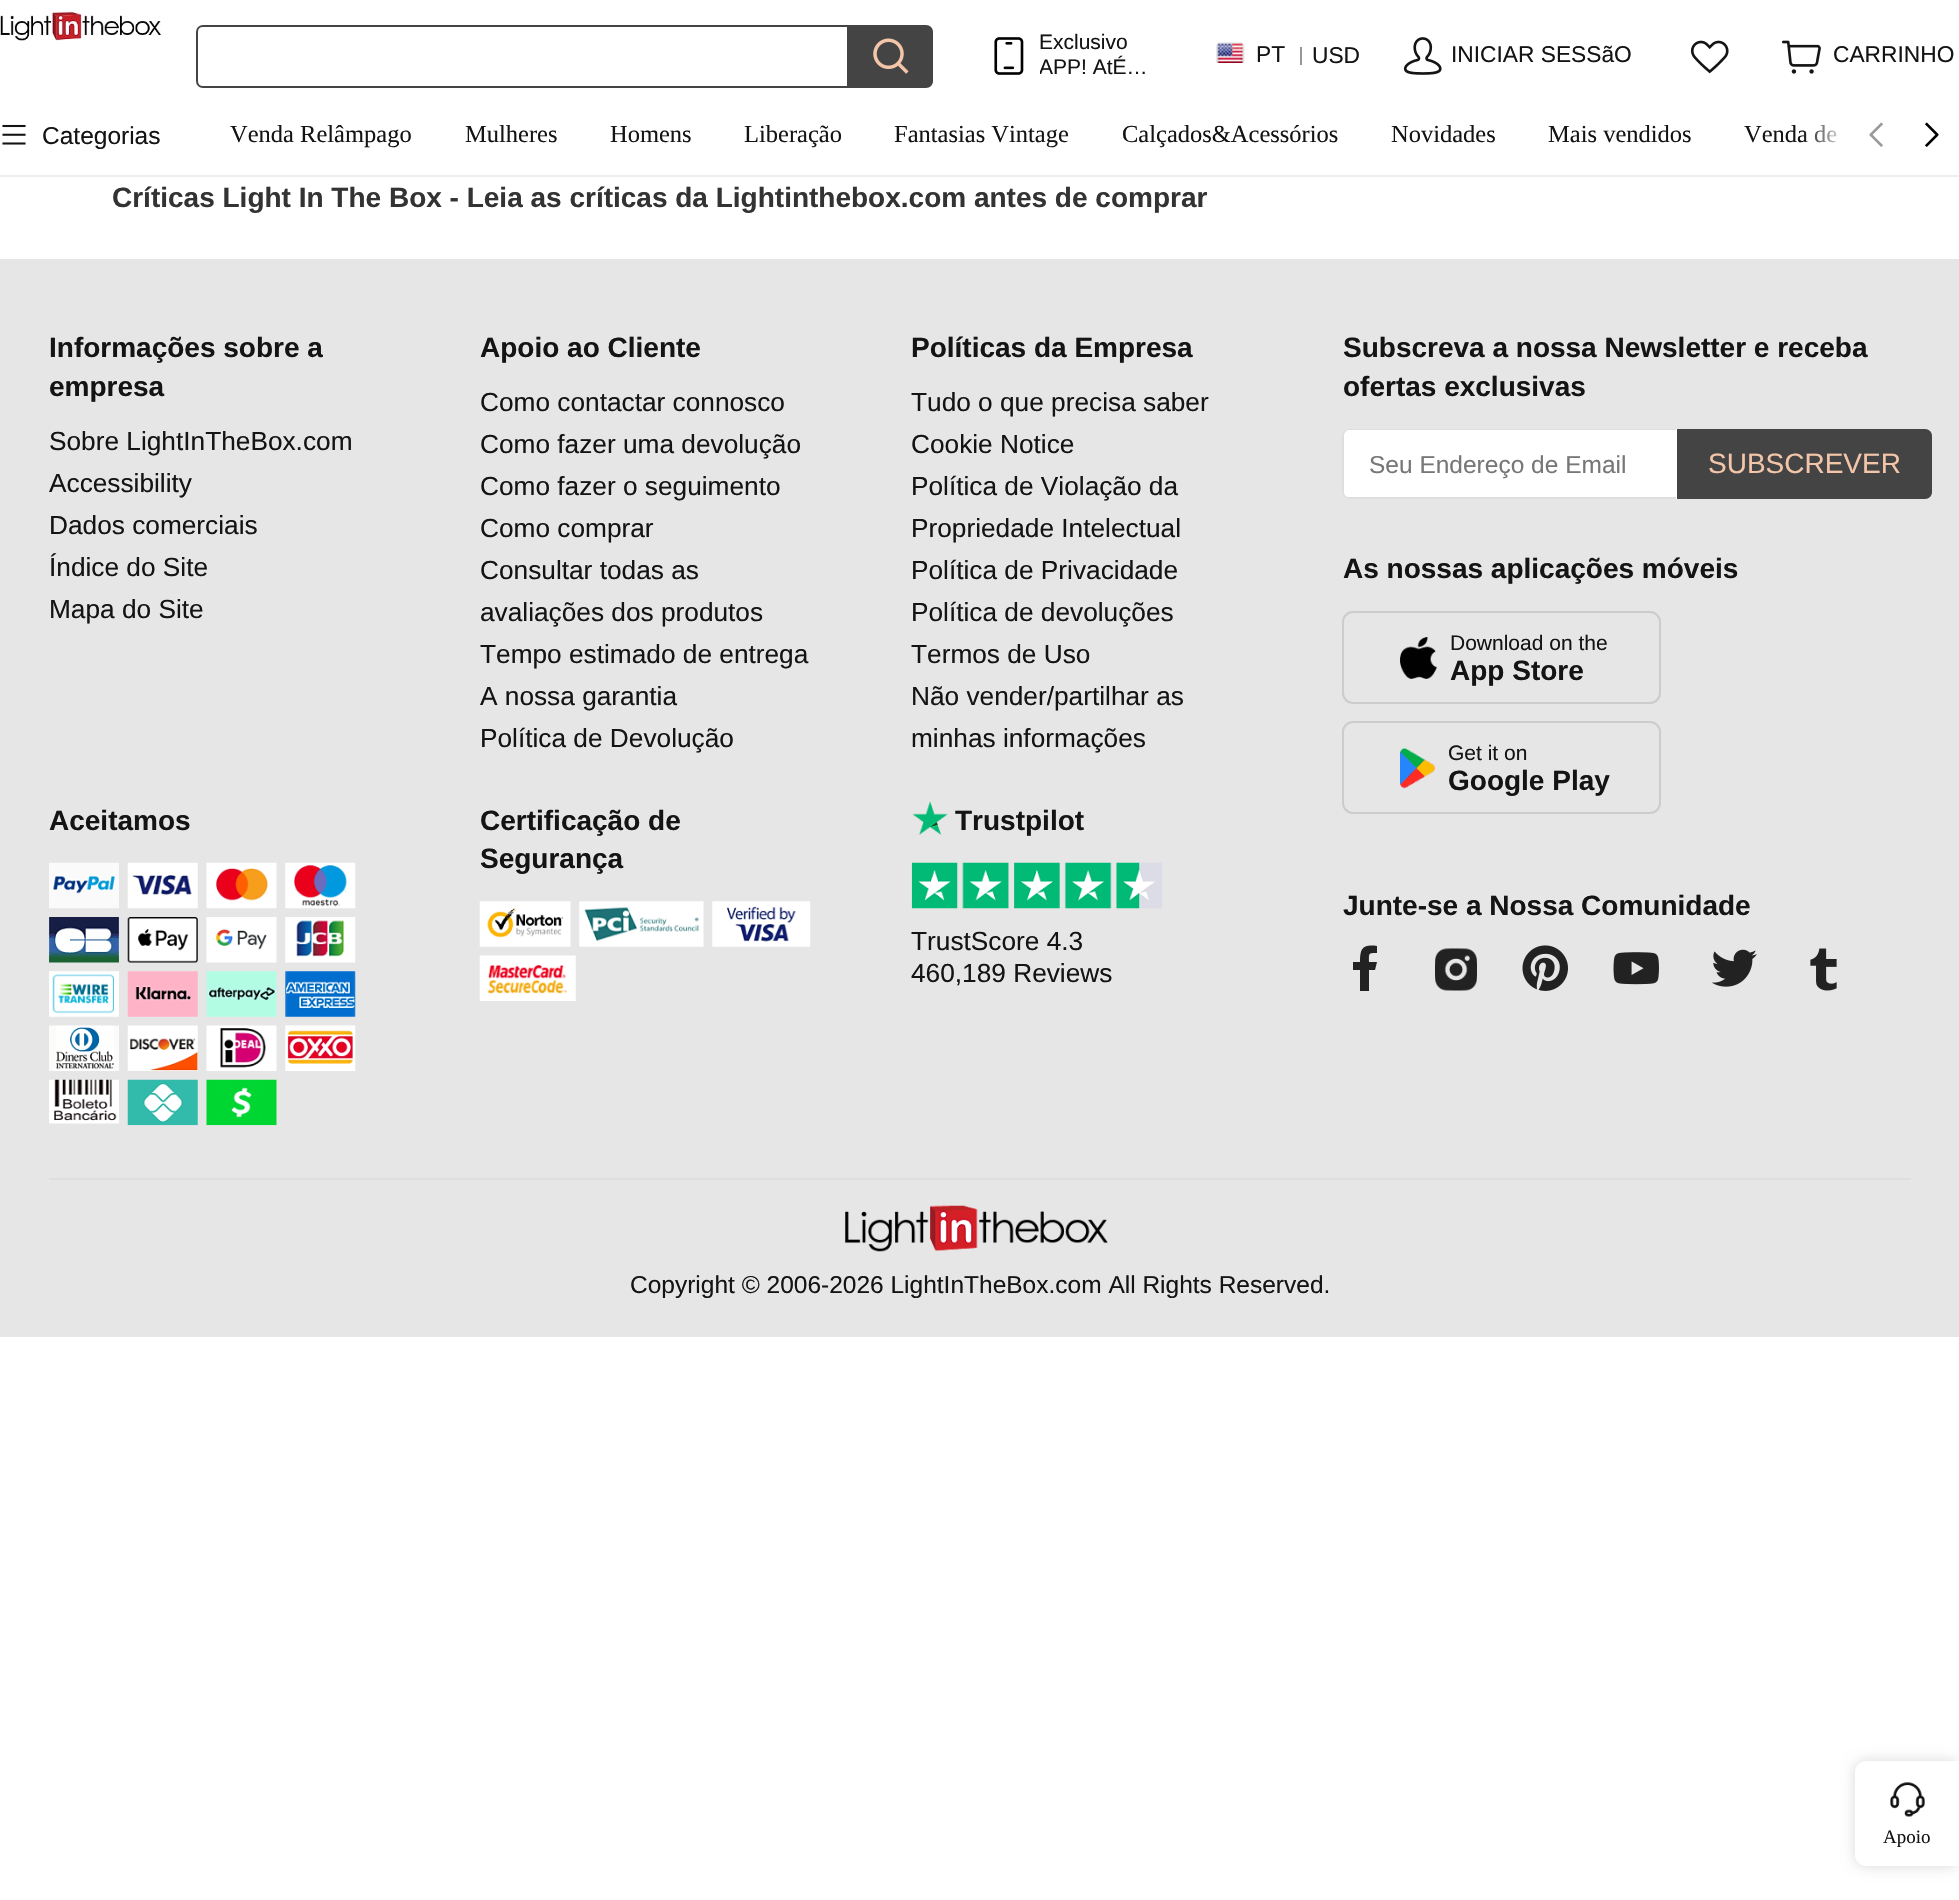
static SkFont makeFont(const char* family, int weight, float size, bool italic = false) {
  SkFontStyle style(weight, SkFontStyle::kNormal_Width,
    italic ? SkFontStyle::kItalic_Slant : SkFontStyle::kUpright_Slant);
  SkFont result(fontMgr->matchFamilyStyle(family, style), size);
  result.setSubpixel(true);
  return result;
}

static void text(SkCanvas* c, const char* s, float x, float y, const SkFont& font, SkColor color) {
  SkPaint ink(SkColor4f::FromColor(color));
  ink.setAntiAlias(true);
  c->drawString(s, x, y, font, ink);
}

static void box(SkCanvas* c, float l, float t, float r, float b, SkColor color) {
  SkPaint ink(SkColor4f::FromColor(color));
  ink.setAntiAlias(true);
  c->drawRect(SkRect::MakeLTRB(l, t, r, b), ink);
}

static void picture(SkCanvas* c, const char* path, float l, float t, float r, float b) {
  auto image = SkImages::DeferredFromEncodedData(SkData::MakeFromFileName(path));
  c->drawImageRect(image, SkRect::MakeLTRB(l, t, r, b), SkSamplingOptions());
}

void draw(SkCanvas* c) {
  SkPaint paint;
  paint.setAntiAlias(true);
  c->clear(0xffffffff);
  box(c, 0, 175, 1959, 177, 0xffeeeeee);
  picture(c, "img_01.png", 0, 11, 161, 41);
  paint.setStyle(SkPaint::kStroke_Style);
  paint.setStrokeWidth(2);
  paint.setColor(0xff444444);
  c->drawPath(SkPathBuilder().moveTo(203, 26).lineTo(848, 26).lineTo(848, 87).lineTo(203, 87).cubicTo(199.5f, 87, 197, 84.5f, 197, 81).lineTo(197, 32).cubicTo(197, 28.5f, 199.5f, 26, 203, 26).close().detach(), paint);
  paint.setStyle(SkPaint::kFill_Style);
  c->drawPath(SkPathBuilder().moveTo(849, 25).lineTo(926, 25).cubicTo(930, 25, 933, 28, 933, 32).lineTo(933, 81).cubicTo(933, 85, 930, 88, 926, 88).lineTo(849, 88).close().detach(), paint);
  picture(c, "img_02.png", 873, 38, 909, 74);
  picture(c, "img_03.png", 994, 37, 1024, 75);
  SkFont face1 = makeFont("Liberation Sans", 400, 21);
  text(c, "Exclusivo", 1039, 49, face1, 0xff141414);
  c->save();
  c->clipRect(SkRect::MakeLTRB(1040, 30, 1180, 81));
  text(c, "APP! AtÉ…", 1039, 74, face1, 0xff141414);
  c->restore();
  picture(c, "img_04.png", 1216, 42, 1245, 63);
  SkFont face2 = makeFont("Liberation Sans", 400, 22.75f);
  text(c, "PT", 1256, 62, face2, 0xff141414);
  box(c, 1300, 47, 1302, 65, 0xff979797);
  text(c, "USD", 1312, 63, face2, 0xff141414);
  picture(c, "img_05.png", 1403, 37, 1442, 75);
  text(c, "INICIAR SESSãO", 1451, 62, face2, 0xff141414);
  picture(c, "img_06.png", 1690, 40, 1729, 74);
  picture(c, "img_07.png", 1782, 40, 1821, 74);
  text(c, "CARRINHO", 1833, 62, face2, 0xff141414);
  picture(c, "img_08.png", 2, 124, 26, 145);
  SkFont face3 = makeFont("Liberation Sans", 400, 24.5f);
  text(c, "Categorias", 42, 144, face3, 0xff141414);
  SkFont face4 = makeFont("Liberation Serif", 400, 24.5f);
  text(c, "Venda Relâmpago", 230, 142, face4, 0xff141414);
  text(c, "Mulheres", 465, 142, face4, 0xff141414);
  text(c, "Homens", 610, 142, face4, 0xff141414);
  text(c, "Liberação", 744, 142, face4, 0xff141414);
  text(c, "Fantasias Vintage", 894, 142, face4, 0xff141414);
  text(c, "Calçados&Acessórios", 1122, 142, face4, 0xff141414);
  text(c, "Novidades", 1391, 142, face4, 0xff141414);
  text(c, "Mais vendidos", 1548, 142, face4, 0xff141414);
  text(c, "Venda de", 1744, 142, face4, 0xff141414);
  {
    const SkColor colors[] = {0xffffffff, 0x00ffffff};
    const float stops[] = {0, 1};
    const SkPoint ends[] = {{1848, 138}, {1803, 138}};
    paint.setShader(SkGradientShader::MakeLinear(ends, colors, stops, 2, SkTileMode::kClamp));
    paint.setAlpha(255);
  }
  c->drawRect(SkRect::MakeLTRB(1804, 125, 1837, 143), paint);
  picture(c, "img_09.png", 1869, 122, 1883, 147);
  picture(c, "img_10.png", 1925, 122, 1939, 147);
  SkFont face5 = makeFont("Liberation Sans", 700, 28);
  text(c, "Críticas Light In The Box - Leia as críticas da Lightinthebox.com antes de comprar", 112, 207, face5, 0xff333333);
  box(c, 0, 259, 1959, 1337, 0xffe6e6e6);
  text(c, "Informações sobre a", 49, 357, face5, 0xff141414);
  text(c, "empresa", 49, 396, face5, 0xff141414);
  SkFont face6 = makeFont("Liberation Sans", 400, 26.25f);
  text(c, "Sobre LightInTheBox.com", 49, 450, face6, 0xff141414);
  text(c, "Accessibility", 49, 492, face6, 0xff141414);
  text(c, "Dados comerciais", 49, 534, face6, 0xff141414);
  text(c, "Índice do Site", 49, 576, face6, 0xff141414);
  text(c, "Mapa do Site", 49, 618, face6, 0xff141414);
  text(c, "Apoio ao Cliente", 480, 357, face5, 0xff141414);
  text(c, "Como contactar connosco", 480, 411, face6, 0xff141414);
  text(c, "Como fazer uma devolução", 480, 453, face6, 0xff141414);
  text(c, "Como fazer o seguimento", 480, 495, face6, 0xff141414);
  text(c, "Como comprar", 480, 537, face6, 0xff141414);
  text(c, "Consultar todas as", 480, 579, face6, 0xff141414);
  text(c, "avaliações dos produtos", 480, 621, face6, 0xff141414);
  text(c, "Tempo estimado de entrega", 480, 663, face6, 0xff141414);
  text(c, "A nossa garantia", 480, 705, face6, 0xff141414);
  text(c, "Política de Devolução", 480, 747, face6, 0xff141414);
  text(c, "Políticas da Empresa", 911, 357, face5, 0xff141414);
  text(c, "Tudo o que precisa saber", 911, 411, face6, 0xff141414);
  text(c, "Cookie Notice", 911, 453, face6, 0xff141414);
  text(c, "Política de Violação da", 911, 495, face6, 0xff141414);
  text(c, "Propriedade Intelectual", 911, 537, face6, 0xff141414);
  text(c, "Política de Privacidade", 911, 579, face6, 0xff141414);
  text(c, "Política de devoluções", 911, 621, face6, 0xff141414);
  text(c, "Termos de Uso", 911, 663, face6, 0xff141414);
  text(c, "Não vender/partilhar as", 911, 705, face6, 0xff141414);
  text(c, "minhas informações", 911, 747, face6, 0xff141414);
  text(c, "Aceitamos", 49, 830, face5, 0xff141414);
  picture(c, "img_11.png", 49, 862, 119, 909);
  picture(c, "img_12.png", 127, 862, 198, 909);
  picture(c, "img_13.png", 206, 862, 277, 909);
  picture(c, "img_14.png", 285, 862, 356, 909);
  picture(c, "img_15.png", 49, 917, 119, 963);
  picture(c, "img_16.png", 127, 917, 198, 963);
  picture(c, "img_17.png", 206, 917, 277, 963);
  picture(c, "img_18.png", 285, 917, 356, 963);
  picture(c, "img_19.png", 49, 971, 119, 1017);
  picture(c, "img_20.png", 127, 971, 198, 1017);
  picture(c, "img_21.png", 206, 971, 277, 1017);
  picture(c, "img_22.png", 285, 971, 356, 1017);
  picture(c, "img_23.png", 49, 1025, 119, 1071);
  picture(c, "img_24.png", 127, 1025, 198, 1071);
  picture(c, "img_25.png", 206, 1025, 277, 1071);
  picture(c, "img_26.png", 285, 1025, 356, 1071);
  picture(c, "img_27.png", 49, 1079, 119, 1124);
  picture(c, "img_28.png", 127, 1079, 198, 1126);
  picture(c, "img_29.png", 206, 1079, 277, 1126);
  text(c, "Certificação de", 480, 830, face5, 0xff141414);
  text(c, "Segurança", 480, 868, face5, 0xff141414);
  picture(c, "img_30.png", 479, 901, 571, 947);
  picture(c, "img_31.png", 579, 901, 704, 947);
  picture(c, "img_32.png", 712, 901, 811, 947);
  picture(c, "img_33.png", 479, 955, 576, 1001);
  picture(c, "img_34.png", 912, 801, 948, 835);
  text(c, "Trustpilot", 955, 830, face5, 0xff141414);
  picture(c, "img_35.png", 911, 862, 1162, 909);
  text(c, "TrustScore 4.3", 911, 950, face6, 0xff141414);
  text(c, "460,189 Reviews", 911, 982, face6, 0xff141414);
  text(c, "Subscreva a nossa Newsletter e receba", 1343, 357, face5, 0xff141414);
  text(c, "ofertas exclusivas", 1343, 396, face5, 0xff141414);
  paint.setShader(nullptr);
  paint.setColor(0xffffffff);
  c->drawPath(SkPathBuilder().moveTo(1349, 429).lineTo(1677, 429).lineTo(1677, 499).lineTo(1349, 499).cubicTo(1345, 499, 1342, 496, 1342, 492).lineTo(1342, 436).cubicTo(1342, 432, 1345, 429, 1349, 429).close().detach(), paint);
  paint.setColor(0xffdedede);
  c->drawPath(SkPathBuilder(SkPathFillType::kEvenOdd).moveTo(1349, 429).lineTo(1676, 429).lineTo(1676, 499).lineTo(1349, 499).cubicTo(1345, 499, 1342, 496, 1342, 492).lineTo(1342, 436).cubicTo(1342, 432, 1345, 429, 1349, 429).close().moveTo(1349, 430).lineTo(1676, 430).lineTo(1676, 497).lineTo(1349, 497).cubicTo(1346, 497, 1344, 495, 1344, 492).lineTo(1344, 436).cubicTo(1344, 433, 1346, 430, 1349, 430).close().detach(), paint);
  text(c, "Seu Endereço de Email", 1369, 473, face3, 0xff777777);
  paint.setColor(0xff444444);
  c->drawPath(SkPathBuilder().moveTo(1677, 429).lineTo(1925, 429).cubicTo(1929, 429, 1932, 432, 1932, 436).lineTo(1932, 492).cubicTo(1932, 496, 1929, 499, 1925, 499).lineTo(1677, 499).close().detach(), paint);
  SkFont face7 = makeFont("Liberation Sans", 400, 28);
  text(c, "SUBSCREVER", 1708, 473, face7, 0xfff3c5a9);
  text(c, "As nossas aplicações móveis", 1343, 578, face5, 0xff141414);
  paint.setStyle(SkPaint::kStroke_Style);
  paint.setColor(0xffcccccc);
  c->drawRoundRect(SkRect::MakeLTRB(1343, 612, 1660, 703), 10, 10, paint);
  picture(c, "img_36.png", 1400, 637, 1437, 679);
  text(c, "Download on the", 1450, 650, face1, 0xff141414);
  text(c, "App Store", 1450, 680, face5, 0xff141414);
  c->drawRoundRect(SkRect::MakeLTRB(1343, 722, 1660, 813), 10, 10, paint);
  picture(c, "img_37.png", 1400, 748, 1435, 789);
  text(c, "Get it on", 1448, 760, face1, 0xff141414);
  text(c, "Google Play", 1448, 790, face5, 0xff141414);
  text(c, "Junte-se a Nossa Comunidade", 1343, 915, face5, 0xff141414);
  paint.setStyle(SkPaint::kFill_Style);
  paint.setColor(0xff222222);
  c->drawPath(SkPathBuilder().moveTo(1377, 946).lineTo(1377, 953).cubicTo(1368, 953, 1369, 953, 1369, 962).lineTo(1377, 962).lineTo(1375, 970).lineTo(1369, 970).lineTo(1369, 991).lineTo(1360, 991).lineTo(1360, 970).lineTo(1353, 970).lineTo(1353, 962).lineTo(1360, 962).cubicTo(1360, 949, 1362, 944, 1377, 946).close().detach(), paint);
  picture(c, "img_38.png", 1435, 948, 1477, 991);
  picture(c, "img_39.png", 1522, 945, 1568, 991);
  picture(c, "img_40.png", 1613, 952, 1659, 985);
  picture(c, "img_41.png", 1711, 949, 1757, 987);
  picture(c, "img_42.png", 1810, 948, 1837, 991);
  box(c, 49, 1178, 1911, 1180, 0xffdedede);
  picture(c, "img_43.png", 845, 1205, 1108, 1252);
  text(c, "Copyright © 2006-2026 LightInTheBox.com All Rights Reserved.", 630, 1293, face3, 0xff141414);
  paint.setColor(0x26000000);
  paint.setMaskFilter(SkMaskFilter::MakeBlur(kNormal_SkBlurStyle, 7));
  c->drawRoundRect(SkRect::MakeLTRB(1855, 1761, 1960, 1866), 11, 11, paint);
  paint.setMaskFilter(nullptr);
  paint.setColor(0xffffffff);
  c->drawPath(SkPathBuilder().moveTo(1866, 1761).lineTo(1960, 1761).lineTo(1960, 1866).lineTo(1866, 1866).cubicTo(1860, 1866, 1855, 1861, 1855, 1855).lineTo(1855, 1772).cubicTo(1855, 1766, 1860, 1761, 1866, 1761).close().detach(), paint);
  picture(c, "img_44.png", 1890, 1782, 1925, 1817);
  SkFont face8 = makeFont("Liberation Serif", 400, 19);
  text(c, "Apoio", 1883, 1843, face8, 0xff141414);
}
